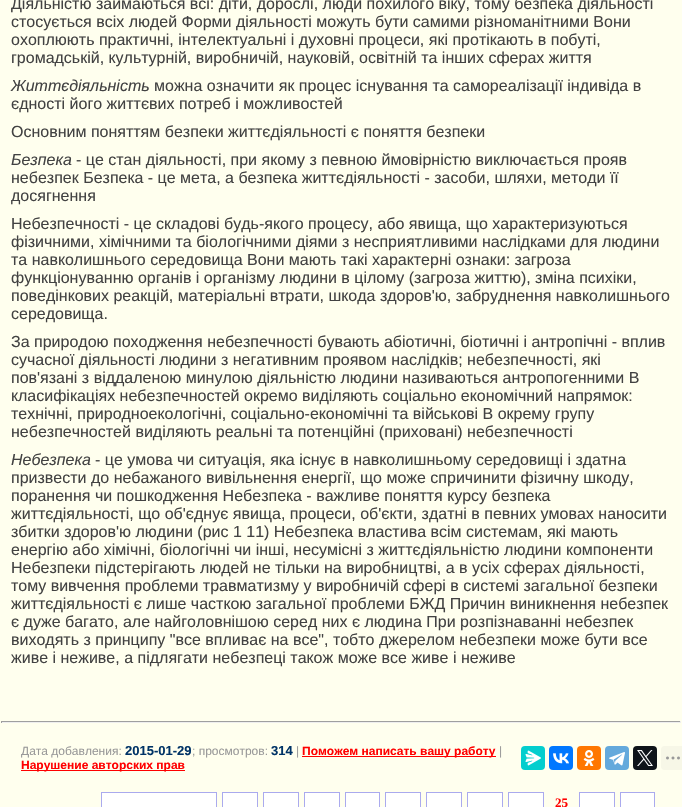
static SkFont makeFont(const char* family, int weight, float size, bool italic = false) {
  SkFontStyle style(weight, SkFontStyle::kNormal_Width,
    italic ? SkFontStyle::kItalic_Slant : SkFontStyle::kUpright_Slant);
  SkFont result(fontMgr->matchFamilyStyle(family, style), size);
  result.setSubpixel(true);
  return result;
}

static void text(SkCanvas* c, const char* s, float x, float y, const SkFont& font, SkColor color) {
  SkPaint ink(SkColor4f::FromColor(color));
  ink.setAntiAlias(true);
  c->drawString(s, x, y, font, ink);
}

static void box(SkCanvas* c, float l, float t, float r, float b, SkColor color) {
  SkPaint ink(SkColor4f::FromColor(color));
  ink.setAntiAlias(true);
  c->drawRect(SkRect::MakeLTRB(l, t, r, b), ink);
}

static void roundBox(SkCanvas* c, float l, float t, float r, float b, float radius, SkColor color) {
  SkPaint ink(SkColor4f::FromColor(color));
  ink.setAntiAlias(true);
  c->drawRoundRect(SkRect::MakeLTRB(l, t, r, b), radius, radius, ink);
}

static void picture(SkCanvas* c, const char* path, float l, float t, float r, float b) {
  auto image = SkImages::DeferredFromEncodedData(SkData::MakeFromFileName(path));
  c->drawImageRect(image, SkRect::MakeLTRB(l, t, r, b), SkSamplingOptions());
}

void draw(SkCanvas* c) {
  SkPaint paint;
  paint.setAntiAlias(true);
  c->clear(0xffffffee);
  SkFont face1 = makeFont("Liberation Sans", 400, 16);
  text(c, "Діяльністю займаються всі: діти, дорослі, люди похилого віку, тому безпека діяльності", 11, 9, face1, 0xff424242);
  text(c, "стосується всіх людей Форми діяльності можуть бути самими різноманітними Вони", 11, 27, face1, 0xff424242);
  text(c, "охоплюють практичні, інтелектуальні і духовні процеси, які протікають в побуті,", 11, 45, face1, 0xff424242);
  text(c, "громадській, культурній, виробничій, науковій, освітній та інших сферах життя", 11, 63, face1, 0xff424242);
  SkFont face2 = makeFont("Liberation Sans", 400, 16, true);
  text(c, "Життєдіяльність", 11, 91, face2, 0xff424242);
  text(c, "можна означити як процес існування та самореалізації індивіда в", 154, 91, face1, 0xff424242);
  text(c, "єдності його життєвих потреб і можливостей", 11, 109, face1, 0xff424242);
  text(c, "Основним поняттям безпеки життєдіяльності є поняття безпеки", 11, 137, face1, 0xff424242);
  text(c, "Безпека", 11, 165, face2, 0xff424242);
  text(c, "- це стан діяльності, при якому з певною ймовірністю виключається прояв", 76, 165, face1, 0xff424242);
  text(c, "небезпек Безпека - це мета, а безпека життєдіяльності - засоби, шляхи, методи її", 11, 183, face1, 0xff424242);
  text(c, "досягнення", 11, 201, face1, 0xff424242);
  text(c, "Небезпечності - це складові будь-якого процесу, або явища, що характеризуються", 11, 229, face1, 0xff424242);
  text(c, "фізичними, хімічними та біологічними діями з несприятливими наслідками для людини", 11, 247, face1, 0xff424242);
  text(c, "та навколишнього середовища Вони мають такі характерні ознаки: загроза", 11, 265, face1, 0xff424242);
  text(c, "функціонуванню органів і організму людини в цілому (загроза життю), зміна психіки,", 11, 283, face1, 0xff424242);
  text(c, "поведінкових реакцій, матеріальні втрати, шкода здоров'ю, забруднення навколишнього", 11, 301, face1, 0xff424242);
  text(c, "середовища.", 11, 319, face1, 0xff424242);
  text(c, "За природою походження небезпечності бувають абіотичні, біотичні і антропічні - вплив", 11, 347, face1, 0xff424242);
  text(c, "сучасної діяльності людини з негативним проявом наслідків; небезпечності, які", 11, 365, face1, 0xff424242);
  text(c, "пов'язані з віддаленою минулою діяльністю людини називаються антропогенними В", 11, 383, face1, 0xff424242);
  text(c, "класифікаціях небезпечностей окремо виділяють соціально економічний напрямок:", 11, 401, face1, 0xff424242);
  text(c, "технічні, природноекологічні, соціально-економічні та військові В окрему групу", 11, 419, face1, 0xff424242);
  text(c, "небезпечностей виділяють реальні та потенційні (приховані) небезпечності", 11, 437, face1, 0xff424242);
  text(c, "Небезпека", 11, 465, face2, 0xff424242);
  text(c, "- це умова чи ситуація, яка існує в навколишньому середовищі і здатна", 95, 465, face1, 0xff424242);
  text(c, "призвести до небажаного вивільнення енергії, що може спричинити фізичну шкоду,", 11, 483, face1, 0xff424242);
  text(c, "поранення чи пошкодження Небезпека - важливе поняття курсу безпека", 11, 501, face1, 0xff424242);
  text(c, "життєдіяльності, що об'єднує явища, процеси, об'єкти, здатні в певних умовах наносити", 11, 519, face1, 0xff424242);
  text(c, "збитки здоров'ю людини (рис 1 11) Небезпека властива всім системам, які мають", 11, 537, face1, 0xff424242);
  text(c, "енергію або хімічні, біологічні чи інші, несумісні з життєдіяльністю людини компоненти", 11, 555, face1, 0xff424242);
  text(c, "Небезпеки підстерігають людей не тільки на виробництві, а в усіх сферах діяльності,", 11, 573, face1, 0xff424242);
  text(c, "тому вивчення проблеми травматизму у виробничій сфері в системі загальної безпеки", 11, 591, face1, 0xff424242);
  text(c, "життєдіяльності є лише часткою загальної проблеми БЖД Причин виникнення небезпек", 11, 609, face1, 0xff424242);
  text(c, "є дуже багато, але найголовнішою серед них є людина При розпізнаванні небезпек", 11, 627, face1, 0xff424242);
  text(c, "виходять з принципу \"все впливає на все\", тобто джерелом небезпеки може бути все", 11, 645, face1, 0xff424242);
  text(c, "живе і неживе, а підлягати небезпеці також може все живе і неживе", 11, 663, face1, 0xff424242);
  box(c, 1, 721, 681, 722, 0xff9f9f9f);
  box(c, 680, 721, 681, 723, 0xffeeeeee);
  box(c, 1, 722, 681, 723, 0xffeeeeee);
  box(c, 1, 721, 2, 723, 0xff9f9f9f);
  SkFont face3 = makeFont("Liberation Sans", 400, 12);
  text(c, "Дата добавления:", 21, 755, face3, 0xff999999);
  SkFont face4 = makeFont("Liberation Sans", 700, 13);
  text(c, "2015-01-29", 125, 755, face4, 0xff003366);
  text(c, "; просмотров:", 192, 755, face3, 0xff999999);
  text(c, "314", 271, 755, face4, 0xff003366);
  text(c, "|", 296, 755, face3, 0xff999999);
  box(c, 302, 756, 496, 757, 0xffff0000);
  SkFont face5 = makeFont("Liberation Sans", 700, 12);
  text(c, "Поможем написать вашу работу", 302, 755, face5, 0xffff0000);
  text(c, "|", 499, 755, face3, 0xff999999);
  box(c, 21, 770, 185, 771, 0xffff0000);
  text(c, "Нарушение авторских прав", 21, 769, face5, 0xffff0000);
  roundBox(c, 521, 746, 545, 770, 4, 0xff03cece);
  picture(c, "img_01.png", 525, 750, 541, 766);
  roundBox(c, 549, 746, 573, 770, 4, 0xff0077ff);
  picture(c, "img_02.png", 553, 753, 569, 764);
  roundBox(c, 577, 746, 601, 770, 4, 0xffff7700);
  picture(c, "img_03.png", 583, 750, 595, 766);
  roundBox(c, 605, 746, 629, 770, 4, 0xff64a9dc);
  picture(c, "img_04.png", 609, 752, 625, 766);
  roundBox(c, 633, 746, 657, 770, 4, 0xff0f1419);
  picture(c, "img_05.png", 637, 750, 653, 766);
  roundBox(c, 661, 746, 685, 770, 4, 0xfff7f7e7);
  picture(c, "img_06.png", 666, 756, 680, 760);
  paint.setColor(0xffffffff);
  c->drawRect(SkRect::MakeLTRB(101.5f, 792.5f, 216.5f, 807.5f), paint);
  paint.setStyle(SkPaint::kStroke_Style);
  paint.setStrokeWidth(1);
  paint.setColor(0xffaaaaee);
  c->drawRect(SkRect::MakeLTRB(101.5f, 792.5f, 216.5f, 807.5f), paint);
  paint.setStyle(SkPaint::kFill_Style);
  paint.setColor(0xffffffff);
  c->drawRect(SkRect::MakeLTRB(222.5f, 792.5f, 257.5f, 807.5f), paint);
  paint.setStyle(SkPaint::kStroke_Style);
  paint.setColor(0xffaaaaee);
  c->drawRect(SkRect::MakeLTRB(222.5f, 792.5f, 257.5f, 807.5f), paint);
  paint.setStyle(SkPaint::kFill_Style);
  paint.setColor(0xffffffff);
  c->drawRect(SkRect::MakeLTRB(263.5f, 792.5f, 298.5f, 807.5f), paint);
  paint.setStyle(SkPaint::kStroke_Style);
  paint.setColor(0xffaaaaee);
  c->drawRect(SkRect::MakeLTRB(263.5f, 792.5f, 298.5f, 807.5f), paint);
  paint.setStyle(SkPaint::kFill_Style);
  paint.setColor(0xffffffff);
  c->drawRect(SkRect::MakeLTRB(304.5f, 792.5f, 339.5f, 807.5f), paint);
  paint.setStyle(SkPaint::kStroke_Style);
  paint.setColor(0xffaaaaee);
  c->drawRect(SkRect::MakeLTRB(304.5f, 792.5f, 339.5f, 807.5f), paint);
  paint.setStyle(SkPaint::kFill_Style);
  paint.setColor(0xffffffff);
  c->drawRect(SkRect::MakeLTRB(345.5f, 792.5f, 379.5f, 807.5f), paint);
  paint.setStyle(SkPaint::kStroke_Style);
  paint.setColor(0xffaaaaee);
  c->drawRect(SkRect::MakeLTRB(345.5f, 792.5f, 379.5f, 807.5f), paint);
  paint.setStyle(SkPaint::kFill_Style);
  paint.setColor(0xffffffff);
  c->drawRect(SkRect::MakeLTRB(385.5f, 792.5f, 420.5f, 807.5f), paint);
  paint.setStyle(SkPaint::kStroke_Style);
  paint.setColor(0xffaaaaee);
  c->drawRect(SkRect::MakeLTRB(385.5f, 792.5f, 420.5f, 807.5f), paint);
  paint.setStyle(SkPaint::kFill_Style);
  paint.setColor(0xffffffff);
  c->drawRect(SkRect::MakeLTRB(426.5f, 792.5f, 461.5f, 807.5f), paint);
  paint.setStyle(SkPaint::kStroke_Style);
  paint.setColor(0xffaaaaee);
  c->drawRect(SkRect::MakeLTRB(426.5f, 792.5f, 461.5f, 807.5f), paint);
  paint.setStyle(SkPaint::kFill_Style);
  paint.setColor(0xffffffff);
  c->drawRect(SkRect::MakeLTRB(467.5f, 792.5f, 502.5f, 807.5f), paint);
  paint.setStyle(SkPaint::kStroke_Style);
  paint.setColor(0xffaaaaee);
  c->drawRect(SkRect::MakeLTRB(467.5f, 792.5f, 502.5f, 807.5f), paint);
  paint.setStyle(SkPaint::kFill_Style);
  paint.setColor(0xffffffff);
  c->drawRect(SkRect::MakeLTRB(508.5f, 792.5f, 543.5f, 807.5f), paint);
  paint.setStyle(SkPaint::kStroke_Style);
  paint.setColor(0xffaaaaee);
  c->drawRect(SkRect::MakeLTRB(508.5f, 792.5f, 543.5f, 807.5f), paint);
  SkFont face6 = makeFont("Liberation Serif", 700, 13);
  text(c, "25", 555, 807, face6, 0xffff0000);
  paint.setStyle(SkPaint::kFill_Style);
  paint.setColor(0xffffffff);
  c->drawRect(SkRect::MakeLTRB(579.5f, 792.5f, 614.5f, 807.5f), paint);
  paint.setStyle(SkPaint::kStroke_Style);
  paint.setColor(0xffaaaaee);
  c->drawRect(SkRect::MakeLTRB(579.5f, 792.5f, 614.5f, 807.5f), paint);
  paint.setStyle(SkPaint::kFill_Style);
  paint.setColor(0xffffffff);
  c->drawRect(SkRect::MakeLTRB(620.5f, 792.5f, 654.5f, 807.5f), paint);
  paint.setStyle(SkPaint::kStroke_Style);
  paint.setColor(0xffaaaaee);
  c->drawRect(SkRect::MakeLTRB(620.5f, 792.5f, 654.5f, 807.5f), paint);
}
